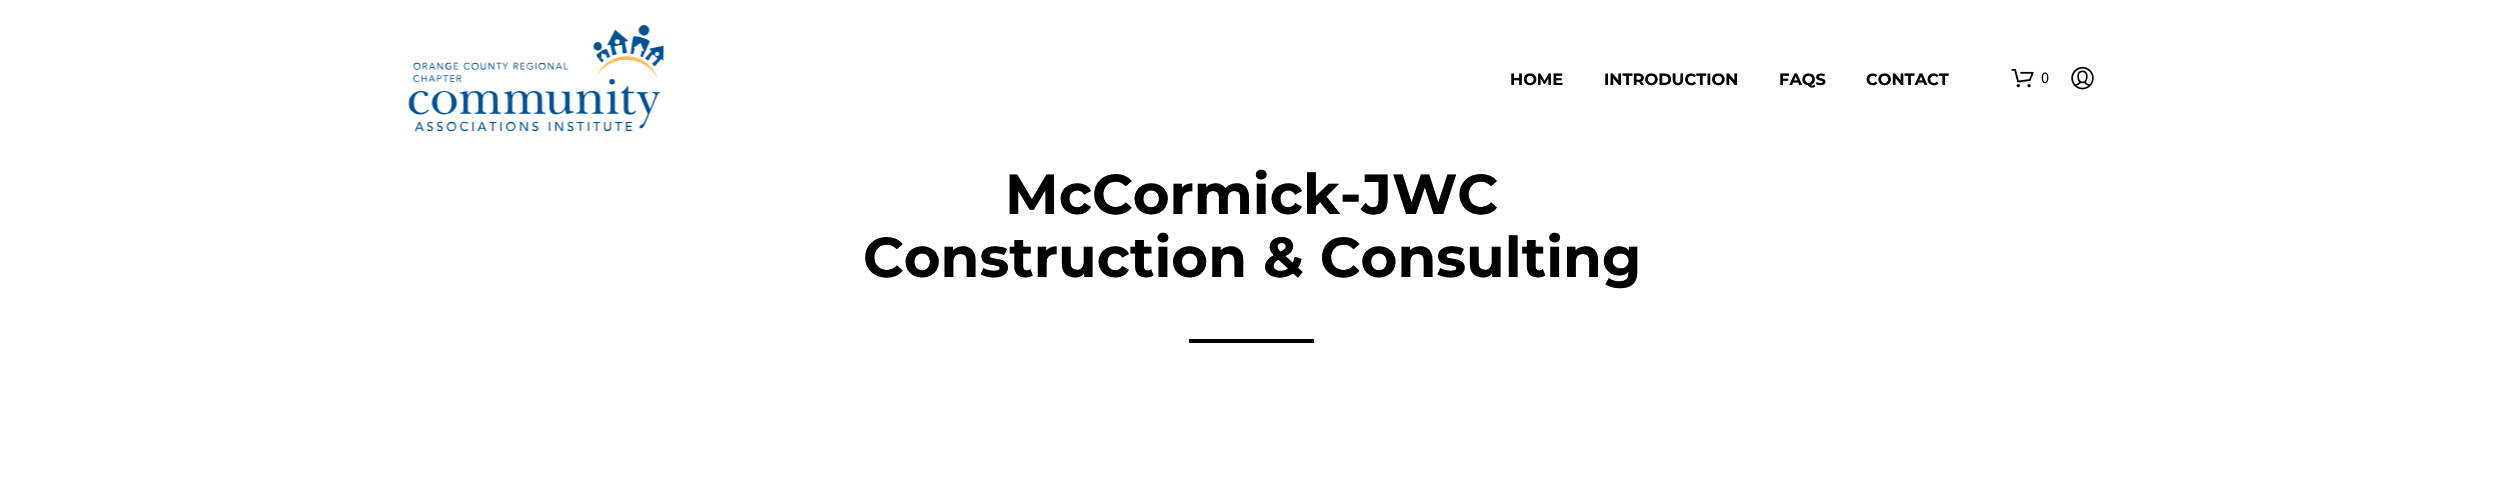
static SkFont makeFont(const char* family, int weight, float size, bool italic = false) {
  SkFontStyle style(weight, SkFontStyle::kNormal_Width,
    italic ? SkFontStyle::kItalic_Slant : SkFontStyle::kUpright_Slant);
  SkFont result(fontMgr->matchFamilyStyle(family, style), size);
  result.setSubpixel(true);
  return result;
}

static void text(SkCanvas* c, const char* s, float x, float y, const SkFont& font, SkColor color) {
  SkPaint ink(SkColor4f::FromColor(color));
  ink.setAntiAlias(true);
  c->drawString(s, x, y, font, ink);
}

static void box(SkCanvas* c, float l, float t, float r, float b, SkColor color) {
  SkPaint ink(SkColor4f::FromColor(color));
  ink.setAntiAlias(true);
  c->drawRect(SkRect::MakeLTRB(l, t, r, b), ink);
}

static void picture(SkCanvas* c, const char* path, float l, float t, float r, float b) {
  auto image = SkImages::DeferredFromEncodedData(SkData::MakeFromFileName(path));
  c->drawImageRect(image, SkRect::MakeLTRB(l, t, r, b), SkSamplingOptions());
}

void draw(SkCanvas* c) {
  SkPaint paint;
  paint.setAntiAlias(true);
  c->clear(0xffffffff);
  picture(c, "img_01.png", 408, 25, 664, 131);
  SkFont face1 = makeFont("Montserrat", 700, 16.25f);
  text(c, "HOME", 1510, 85, face1, 0xff000000);
  text(c, "INTRODUCTION", 1604, 85, face1, 0xff000000);
  text(c, "FAQS", 1779, 85, face1, 0xff000000);
  text(c, "CONTACT", 1866, 85, face1, 0xff000000);
  picture(c, "img_02.png", 2011, 68, 2034, 88);
  SkFont face2 = makeFont("Source Sans Pro", 400, 16.25f);
  text(c, "0", 2041, 83, face2, 0xff000000);
  picture(c, "img_03.png", 2071, 66, 2094, 90);
  SkFont face3 = makeFont("Montserrat", 700, 56.25f);
  text(c, "McCormick-JWC", 1005, 214, face3, 0xff000000);
  text(c, "Construction & Consulting", 863, 277, face3, 0xff000000);
  box(c, 1189, 339, 1314, 343, 0xff000000);
}
